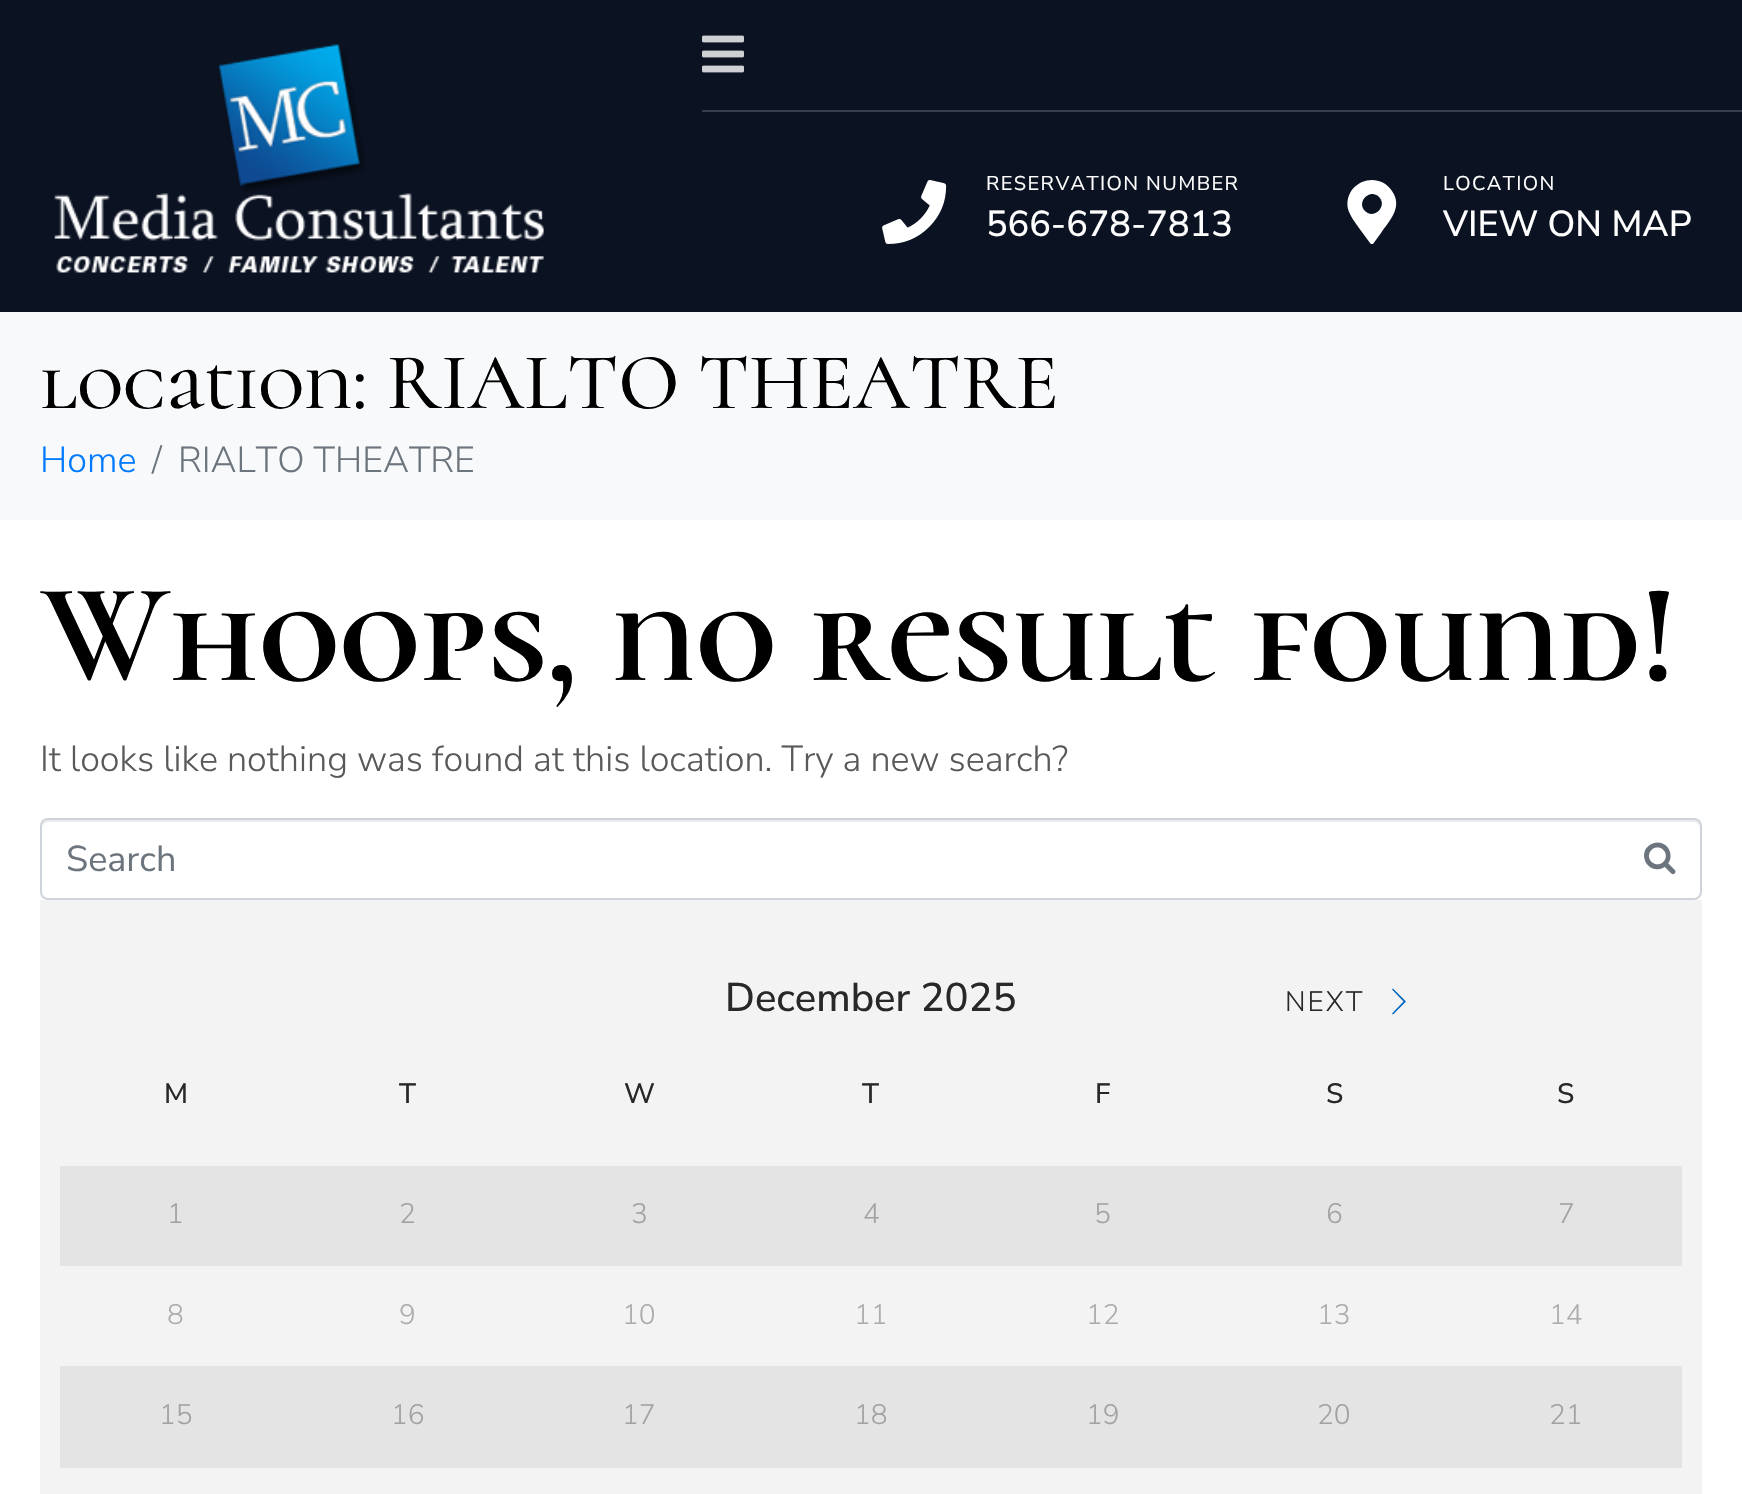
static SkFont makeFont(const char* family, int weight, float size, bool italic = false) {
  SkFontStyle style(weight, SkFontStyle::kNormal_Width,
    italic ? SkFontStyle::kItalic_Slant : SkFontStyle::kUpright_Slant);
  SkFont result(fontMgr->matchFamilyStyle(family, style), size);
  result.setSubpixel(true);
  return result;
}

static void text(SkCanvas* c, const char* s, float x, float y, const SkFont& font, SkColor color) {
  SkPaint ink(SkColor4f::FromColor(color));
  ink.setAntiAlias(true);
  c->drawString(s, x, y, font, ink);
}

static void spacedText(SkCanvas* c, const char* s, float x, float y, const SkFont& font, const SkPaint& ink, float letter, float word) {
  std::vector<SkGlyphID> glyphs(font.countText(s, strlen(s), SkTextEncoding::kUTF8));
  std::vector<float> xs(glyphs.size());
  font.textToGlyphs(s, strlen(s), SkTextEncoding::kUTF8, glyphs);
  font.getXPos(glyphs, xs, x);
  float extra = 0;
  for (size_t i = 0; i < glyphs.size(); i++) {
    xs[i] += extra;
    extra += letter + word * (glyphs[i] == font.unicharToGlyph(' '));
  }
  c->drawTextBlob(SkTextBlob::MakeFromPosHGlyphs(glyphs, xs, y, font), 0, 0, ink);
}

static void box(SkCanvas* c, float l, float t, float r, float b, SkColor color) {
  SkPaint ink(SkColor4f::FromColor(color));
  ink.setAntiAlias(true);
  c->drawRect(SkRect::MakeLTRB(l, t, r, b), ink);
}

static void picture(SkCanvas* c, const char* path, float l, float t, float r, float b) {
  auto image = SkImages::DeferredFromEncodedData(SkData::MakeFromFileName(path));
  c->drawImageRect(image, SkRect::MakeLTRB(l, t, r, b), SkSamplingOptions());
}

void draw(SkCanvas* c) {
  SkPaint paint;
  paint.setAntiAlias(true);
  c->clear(0xffffffff);
  box(c, 0, 0, 1742, 312, 0xff0b1222);
  picture(c, "img_01.png", 54, 44, 544, 273);
  box(c, 702, 110, 1742, 112, 0xff373d4a);
  picture(c, "img_02.png", 702, 35, 744, 73);
  picture(c, "img_03.png", 882, 180, 947, 244);
  SkFont face1 = makeFont("Nunito Sans", 400, 20);
  paint.setColor(0xffffffff);
  spacedText(c, "RESERVATION NUMBER", 986, 190, face1, paint, 1.4f, 0);
  SkFont face2 = makeFont("Nunito Sans", 500, 36);
  text(c, "566-678-7813", 986, 236, face2, 0xffffffff);
  c->drawPath(SkPathBuilder().moveTo(1370, 243).lineTo(1359, 228).cubicTo(1355, 222, 1350, 216, 1348, 209).cubicTo(1343, 183, 1377, 169, 1392, 191).cubicTo(1403, 207, 1390, 220, 1381, 233).lineTo(1373, 244).cubicTo(1372, 244, 1370, 244, 1370, 243).close().moveTo(1365, 211).cubicTo(1374, 220, 1388, 206, 1379, 197).cubicTo(1370, 188, 1356, 202, 1365, 211).close().detach(), paint);
  spacedText(c, "LOCATION", 1443, 190, face1, paint, 1.4f, 0);
  text(c, "VIEW ON MAP", 1443, 236, face2, 0xffffffff);
  box(c, 0, 312, 1742, 520, 0xfff8f9fa);
  SkFont face3 = makeFont("Cormorant Unicase", 500, 80);
  text(c, "location: RIALTO THEATRE", 40, 408, face3, 0xff000000);
  SkFont face4 = makeFont("Nunito Sans", 300, 36);
  text(c, "Home", 40, 472, face4, 0xff007bff);
  text(c, "/", 152, 472, face4, 0xff6c757d);
  text(c, "RIALTO THEATRE", 178, 472, face4, 0xff6c757d);
  SkFont face5 = makeFont("Cormorant Unicase", 700, 142);
  text(c, "Whoops, no result found!", 40, 680, face5, 0xff000000);
  text(c, "It looks like nothing was found at this location. Try a new search?", 40, 771, face4, 0xff58595a);
  paint.setColor(0xffececec);
  c->drawPath(SkPathBuilder().moveTo(48, 822).lineTo(1694, 822).cubicTo(1697, 822, 1700, 825, 1700, 828).cubicTo(1700, 824, 1699, 820, 1694, 820).lineTo(48, 820).cubicTo(43, 820, 42, 824, 42, 828).cubicTo(42, 825, 45, 822, 48, 822).close().detach(), paint);
  paint.setStyle(SkPaint::kStroke_Style);
  paint.setStrokeWidth(2);
  paint.setColor(0xffced4da);
  c->drawRoundRect(SkRect::MakeLTRB(41, 819, 1701, 899), 7, 7, paint);
  SkFont face6 = makeFont("Nunito Sans", 400, 36);
  text(c, "Search", 66, 871, face6, 0xff6c757d);
  picture(c, "img_04.png", 1644, 842, 1676, 875);
  box(c, 40, 900, 1702, 1494, 0xfff3f3f3);
  SkFont face7 = makeFont("Nunito Sans", 500, 40);
  text(c, "December 2025", 725, 1011, face7, 0xff282828);
  SkFont face8 = makeFont("Nunito Sans", 300, 28);
  paint.setStyle(SkPaint::kFill_Style);
  paint.setColor(0xff282828);
  spacedText(c, "NEXT", 1285, 1011, face8, paint, 2, 0);
  paint.setColor(0xff0066bf);
  c->drawPath(SkPathBuilder().moveTo(1406, 1001.5f).lineTo(1393, 1014.5f).lineTo(1392, 1013.5f).lineTo(1403.5f, 1001.5f).lineTo(1392, 989.5f).lineTo(1393, 988.5f).close().detach(), paint);
  SkFont face9 = makeFont("Nunito Sans", 500, 28);
  text(c, "M", 164, 1103, face9, 0xff282828);
  text(c, "T", 399, 1103, face9, 0xff282828);
  text(c, "W", 624, 1103, face9, 0xff282828);
  text(c, "T", 862, 1103, face9, 0xff282828);
  text(c, "F", 1095, 1103, face9, 0xff282828);
  text(c, "S", 1326, 1103, face9, 0xff282828);
  text(c, "S", 1557, 1103, face9, 0xff282828);
  box(c, 60, 1166, 1682, 1266, 0xffe4e4e4);
  text(c, "1", 167, 1223, face8, 0xffa2a2a2);
  text(c, "2", 399, 1223, face8, 0xffa2a2a2);
  text(c, "3", 631, 1223, face8, 0xffa2a2a2);
  text(c, "4", 863, 1223, face8, 0xffa2a2a2);
  text(c, "5", 1094, 1223, face8, 0xffa2a2a2);
  text(c, "6", 1326, 1223, face8, 0xffa2a2a2);
  text(c, "7", 1558, 1223, face8, 0xffa2a2a2);
  text(c, "8", 167, 1324, face8, 0xffacacac);
  text(c, "9", 399, 1324, face8, 0xffacacac);
  text(c, "10", 622, 1324, face8, 0xffacacac);
  text(c, "11", 854, 1324, face8, 0xffacacac);
  text(c, "12", 1086, 1324, face8, 0xffacacac);
  text(c, "13", 1317, 1324, face8, 0xffacacac);
  text(c, "14", 1549, 1324, face8, 0xffacacac);
  box(c, 60, 1366, 1682, 1468, 0xffe4e4e4);
  text(c, "15", 159, 1424, face8, 0xffa2a2a2);
  text(c, "16", 391, 1424, face8, 0xffa2a2a2);
  text(c, "17", 622, 1424, face8, 0xffa2a2a2);
  text(c, "18", 854, 1424, face8, 0xffa2a2a2);
  text(c, "19", 1086, 1424, face8, 0xffa2a2a2);
  text(c, "20", 1317, 1424, face8, 0xffa2a2a2);
  text(c, "21", 1549, 1424, face8, 0xffa2a2a2);
}
